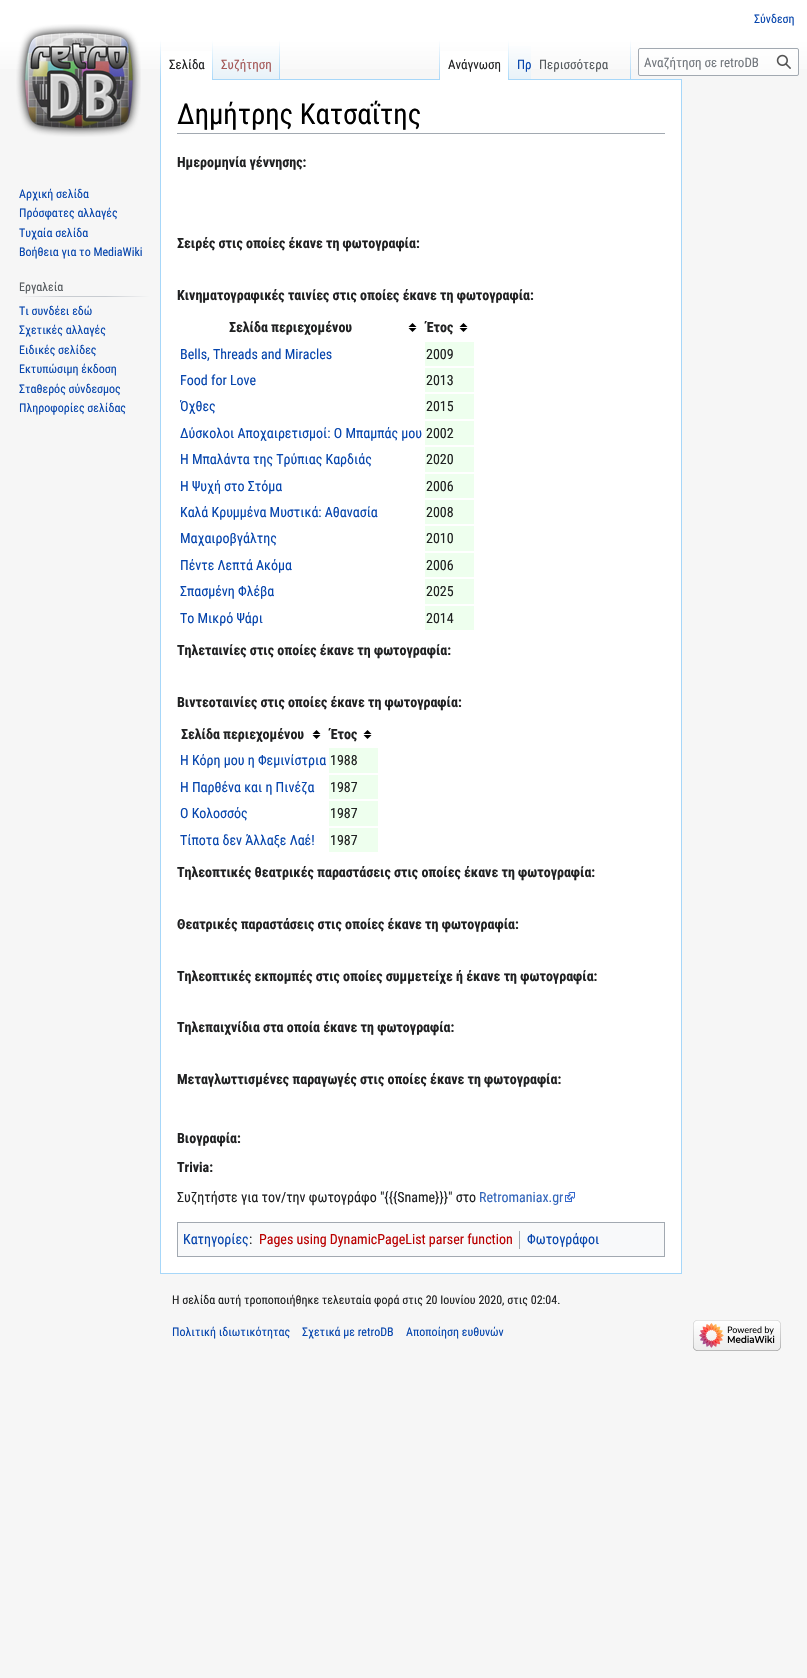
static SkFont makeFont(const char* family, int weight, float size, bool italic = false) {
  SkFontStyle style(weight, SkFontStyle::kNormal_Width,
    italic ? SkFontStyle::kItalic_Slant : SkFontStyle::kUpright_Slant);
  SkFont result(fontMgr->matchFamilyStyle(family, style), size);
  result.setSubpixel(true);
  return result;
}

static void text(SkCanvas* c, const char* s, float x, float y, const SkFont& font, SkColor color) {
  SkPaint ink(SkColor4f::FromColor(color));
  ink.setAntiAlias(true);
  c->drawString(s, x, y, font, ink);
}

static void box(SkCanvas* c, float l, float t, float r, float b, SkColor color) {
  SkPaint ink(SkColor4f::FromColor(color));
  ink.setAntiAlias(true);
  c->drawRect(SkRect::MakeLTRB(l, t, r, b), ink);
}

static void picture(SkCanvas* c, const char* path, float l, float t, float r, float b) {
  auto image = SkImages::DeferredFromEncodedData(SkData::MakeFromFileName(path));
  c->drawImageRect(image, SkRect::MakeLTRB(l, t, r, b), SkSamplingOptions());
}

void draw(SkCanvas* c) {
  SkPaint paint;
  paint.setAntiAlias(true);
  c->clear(0xfff6f6f6);
  {
    const SkColor colors[] = {0xffffffff, 0xfff6f6f6};
    const float stops[] = {0.5f, 1};
    const SkPoint ends[] = {{404, 0}, {404, 80}};
    paint.setShader(SkGradientShader::MakeLinear(ends, colors, stops, 2, SkTileMode::kClamp));
    paint.setAlpha(255);
  }
  c->drawRect(SkRect::MakeLTRB(0, 0, 807, 69), paint);
  SkFont face1 = makeFont("Roboto Condensed", 400, 12);
  text(c, "Σύνδεση", 754, 23, face1, 0xff0645ad);
  paint.setShader(nullptr);
  paint.setColor(0xffffffff);
  c->drawRect(SkRect::MakeLTRB(160.5f, 79.5f, 681.5f, 1273.5f), paint);
  paint.setStyle(SkPaint::kStroke_Style);
  paint.setStrokeWidth(1);
  paint.setColor(0xffa7d7f9);
  c->drawRect(SkRect::MakeLTRB(160.5f, 79.5f, 681.5f, 1273.5f), paint);
  paint.setStyle(SkPaint::kFill_Style);
  {
    const SkColor colors[] = {0x00a7d7f9, 0xffa7d7f9};
    const float stops[] = {0, 1};
    const SkPoint ends[] = {{161, 40}, {161, 80}};
    paint.setShader(SkGradientShader::MakeLinear(ends, colors, stops, 2, SkTileMode::kClamp));
    paint.setAlpha(255);
  }
  c->drawRect(SkRect::MakeLTRB(160, 40, 161, 80), paint);
  box(c, 161, 51, 212, 80, 0xffffffff);
  {
    const SkColor colors[] = {0xffffffff, 0xffa7d7f9};
    const float stops[] = {0, 1};
    const SkPoint ends[] = {{213, 40}, {213, 80}};
    paint.setShader(SkGradientShader::MakeLinear(ends, colors, stops, 2, SkTileMode::kClamp));
    paint.setAlpha(255);
  }
  c->drawRect(SkRect::MakeLTRB(212, 40, 213, 80), paint);
  SkFont face2 = makeFont("Roboto Condensed", 400, 13);
  text(c, "Σελίδα", 169, 69, face2, 0xff202122);
  {
    const SkColor colors[] = {0xff77c1f6, 0xffe8f2f8, 0xffffffff};
    const float stops[] = {0, 0.03f, 1};
    const SkPoint ends[] = {{247, 80}, {247, 40}};
    paint.setShader(SkGradientShader::MakeLinear(ends, colors, stops, 3, SkTileMode::kClamp));
    paint.setAlpha(255);
  }
  c->drawRect(SkRect::MakeLTRB(213, 46, 280, 79), paint);
  {
    const SkColor colors[] = {0x00a7d7f9, 0xffa7d7f9};
    const float stops[] = {0, 1};
    const SkPoint ends[] = {{280, 40}, {280, 80}};
    paint.setShader(SkGradientShader::MakeLinear(ends, colors, stops, 2, SkTileMode::kClamp));
    paint.setAlpha(255);
  }
  c->drawRect(SkRect::MakeLTRB(279, 40, 280, 80), paint);
  text(c, "Συζήτηση", 221, 69, face2, 0xffa55858);
  {
    const SkColor colors[] = {0x00a7d7f9, 0xffa7d7f9};
    const float stops[] = {0, 1};
    const SkPoint ends[] = {{440, 40}, {440, 80}};
    paint.setShader(SkGradientShader::MakeLinear(ends, colors, stops, 2, SkTileMode::kClamp));
    paint.setAlpha(255);
  }
  c->drawRect(SkRect::MakeLTRB(439, 40, 440, 80), paint);
  box(c, 440, 51, 508, 80, 0xffffffff);
  {
    const SkColor colors[] = {0xffffffff, 0xffa7d7f9};
    const float stops[] = {0, 1};
    const SkPoint ends[] = {{509, 40}, {509, 80}};
    paint.setShader(SkGradientShader::MakeLinear(ends, colors, stops, 2, SkTileMode::kClamp));
    paint.setAlpha(255);
  }
  c->drawRect(SkRect::MakeLTRB(508, 40, 509, 80), paint);
  text(c, "Ανάγνωση", 448, 69, face2, 0xff202122);
  {
    const SkColor colors[] = {0xff77c1f6, 0xffe8f2f8, 0xffffffff};
    const float stops[] = {0, 0.03f, 1};
    const SkPoint ends[] = {{520, 80}, {520, 40}};
    paint.setShader(SkGradientShader::MakeLinear(ends, colors, stops, 3, SkTileMode::kClamp));
    paint.setAlpha(255);
  }
  c->drawRect(SkRect::MakeLTRB(509, 46, 531, 79), paint);
  c->save();
  c->clipRect(SkRect::MakeLTRB(509, 40, 531, 80));
  text(c, "Πρ", 517, 69, face2, 0xff0645ad);
  c->restore();
  {
    const SkColor colors[] = {0x00a7d7f9, 0xffa7d7f9};
    const float stops[] = {0, 1};
    const SkPoint ends[] = {{631, 40}, {631, 80}};
    paint.setShader(SkGradientShader::MakeLinear(ends, colors, stops, 2, SkTileMode::kClamp));
    paint.setAlpha(255);
  }
  c->drawRect(SkRect::MakeLTRB(630, 40, 631, 80), paint);
  text(c, "Περισσότερα", 539, 69, face2, 0xff54595d);
  paint.setShader(nullptr);
  paint.setColor(0x80ffffff);
  c->drawRoundRect(SkRect::MakeLTRB(638.5f, 48.5f, 798.5f, 75.5f), 1.5f, 1.5f, paint);
  paint.setStyle(SkPaint::kStroke_Style);
  paint.setColor(0xffa2a9b1);
  c->drawRoundRect(SkRect::MakeLTRB(638.5f, 48.5f, 798.5f, 75.5f), 1.5f, 1.5f, paint);
  text(c, "Αναζήτηση σε retroDB", 644, 67, face2, 0xff72777d);
  picture(c, "img_01.png", 776, 54, 791, 69);
  picture(c, "img_02.png", 16, 24, 141, 137);
  text(c, "Αρχική σελίδα", 19, 198, face1, 0xff0645ad);
  text(c, "Πρόσφατες αλλαγές", 19, 217, face1, 0xff0645ad);
  text(c, "Τυχαία σελίδα", 19, 237, face1, 0xff0645ad);
  text(c, "Βοήθεια για το MediaWiki", 19, 256, face1, 0xff0645ad);
  paint.setStyle(SkPaint::kFill_Style);
  {
    const SkColor colors[] = {0xfff6f6f6, 0xffc8ccd1, 0xffc8ccd1, 0xfff6f6f6};
    const float stops[] = {0, 0.33f, 0.66f, 1};
    const SkPoint ends[] = {{19, 297}, {150, 297}};
    paint.setShader(SkGradientShader::MakeLinear(ends, colors, stops, 4, SkTileMode::kClamp));
    paint.setAlpha(255);
  }
  c->drawRect(SkRect::MakeLTRB(19, 296, 150, 297), paint);
  text(c, "Εργαλεία", 19, 291, face1, 0xff54595d);
  text(c, "Τι συνδέει εδώ", 19, 315, face1, 0xff0645ad);
  text(c, "Σχετικές αλλαγές", 19, 334, face1, 0xff0645ad);
  text(c, "Ειδικές σελίδες", 19, 354, face1, 0xff0645ad);
  text(c, "Εκτυπώσιμη έκδοση", 19, 373, face1, 0xff0645ad);
  text(c, "Σταθερός σύνδεσμος", 19, 393, face1, 0xff0645ad);
  text(c, "Πληροφορίες σελίδας", 19, 412, face1, 0xff0645ad);
  box(c, 177, 133, 665, 134, 0xffa2a9b1);
  SkFont face3 = makeFont("Roboto Condensed", 400, 28.75f);
  text(c, "Δημήτρης Κατσαΐτης", 177, 124, face3, 0xff000000);
  SkFont face4 = makeFont("Roboto Condensed", 700, 14);
  text(c, "Ημερομηνία γέννησης:", 177, 167, face4, 0xff202122);
  text(c, "Σειρές στις οποίες έκανε τη φωτογραφία:", 177, 248, face4, 0xff202122);
  text(c, "Κινηματογραφικές ταινίες στις οποίες έκανε τη φωτογραφία:", 177, 300, face4, 0xff202122);
  picture(c, "img_03.png", 408, 323, 417, 332);
  text(c, "Σελίδα περιεχομένου", 229, 332, face4, 0xff202122);
  picture(c, "img_03.png", 459, 323, 468, 332);
  text(c, "Έτος", 426, 332, face4, 0xff202122);
  SkFont face5 = makeFont("Roboto Condensed", 400, 14);
  text(c, "Bells, Threads and Miracles", 180, 359, face5, 0xff0645ad);
  box(c, 425, 342, 474, 366, 0xffeeffee);
  text(c, "2009", 426, 359, face5, 0xff202122);
  text(c, "Food for Love", 180, 385, face5, 0xff0645ad);
  box(c, 425, 368, 474, 392, 0xffeeffee);
  text(c, "2013", 426, 385, face5, 0xff202122);
  text(c, "Όχθες", 180, 411, face5, 0xff0645ad);
  box(c, 425, 394, 474, 419, 0xffeeffee);
  text(c, "2015", 426, 411, face5, 0xff202122);
  text(c, "Δύσκολοι Αποχαιρετισμοί: Ο Μπαμπάς μου", 180, 438, face5, 0xff0645ad);
  box(c, 425, 421, 474, 445, 0xffeeffee);
  text(c, "2002", 426, 438, face5, 0xff202122);
  text(c, "Η Μπαλάντα της Τρύπιας Καρδιάς", 180, 464, face5, 0xff0645ad);
  box(c, 425, 447, 474, 472, 0xffeeffee);
  text(c, "2020", 426, 464, face5, 0xff202122);
  text(c, "Η Ψυχή στο Στόμα", 180, 491, face5, 0xff0645ad);
  box(c, 425, 474, 474, 498, 0xffeeffee);
  text(c, "2006", 426, 491, face5, 0xff202122);
  text(c, "Καλά Κρυμμένα Μυστικά: Αθανασία", 180, 517, face5, 0xff0645ad);
  box(c, 425, 500, 474, 524, 0xffeeffee);
  text(c, "2008", 426, 517, face5, 0xff202122);
  text(c, "Μαχαιροβγάλτης", 180, 543, face5, 0xff0645ad);
  box(c, 425, 526, 474, 551, 0xffeeffee);
  text(c, "2010", 426, 543, face5, 0xff202122);
  text(c, "Πέντε Λεπτά Ακόμα", 180, 570, face5, 0xff0645ad);
  box(c, 425, 553, 474, 577, 0xffeeffee);
  text(c, "2006", 426, 570, face5, 0xff202122);
  text(c, "Σπασμένη Φλέβα", 180, 596, face5, 0xff0645ad);
  box(c, 425, 579, 474, 604, 0xffeeffee);
  text(c, "2025", 426, 596, face5, 0xff202122);
  text(c, "Το Μικρό Ψάρι", 180, 623, face5, 0xff0645ad);
  box(c, 425, 606, 474, 630, 0xffeeffee);
  text(c, "2014", 426, 623, face5, 0xff202122);
  text(c, "Τηλεταινίες στις οποίες έκανε τη φωτογραφία:", 177, 655, face4, 0xff202122);
  text(c, "Βιντεοταινίες στις οποίες έκανε τη φωτογραφία:", 177, 707, face4, 0xff202122);
  picture(c, "img_03.png", 312, 730, 321, 739);
  text(c, "Σελίδα περιεχομένου", 181, 739, face4, 0xff202122);
  picture(c, "img_03.png", 363, 730, 372, 739);
  text(c, "Έτος", 330, 739, face4, 0xff202122);
  text(c, "Η Κόρη μου η Φεμινίστρια", 180, 765, face5, 0xff0645ad);
  box(c, 329, 748, 378, 773, 0xffeeffee);
  text(c, "1988", 330, 765, face5, 0xff202122);
  text(c, "Η Παρθένα και η Πινέζα", 180, 792, face5, 0xff0645ad);
  box(c, 329, 775, 378, 799, 0xffeeffee);
  text(c, "1987", 330, 792, face5, 0xff202122);
  text(c, "Ο Κολοσσός", 180, 818, face5, 0xff0645ad);
  box(c, 329, 801, 378, 826, 0xffeeffee);
  text(c, "1987", 330, 818, face5, 0xff202122);
  text(c, "Τίποτα δεν Άλλαξε Λαέ!", 180, 845, face5, 0xff0645ad);
  box(c, 329, 828, 378, 852, 0xffeeffee);
  text(c, "1987", 330, 845, face5, 0xff202122);
  text(c, "Τηλεοπτικές θεατρικές παραστάσεις στις οποίες έκανε τη φωτογραφία:", 177, 877, face4, 0xff202122);
  text(c, "Θεατρικές παραστάσεις στις οποίες έκανε τη φωτογραφία:", 177, 929, face4, 0xff202122);
  text(c, "Τηλεοπτικές εκπομπές στις οποίες συμμετείχε ή έκανε τη φωτογραφία:", 177, 981, face4, 0xff202122);
  text(c, "Τηλεπαιχνίδια στα οποία έκανε τη φωτογραφία:", 177, 1032, face4, 0xff202122);
  text(c, "Μεταγλωττισμένες παραγωγές στις οποίες έκανε τη φωτογραφία:", 177, 1084, face4, 0xff202122);
  text(c, "Βιογραφία:", 177, 1143, face4, 0xff202122);
  text(c, "Trivia:", 177, 1172, face4, 0xff202122);
  text(c, "Συζητήστε για τον/την φωτογράφο \"{{{Sname}}}\" στο", 177, 1202, face5, 0xff202122);
  text(c, "Retromaniax.gr", 479, 1202, face5, 0xff3366bb);
  picture(c, "img_04.png", 565, 1192, 575, 1202);
  paint.setShader(nullptr);
  paint.setColor(0xfff8f9fa);
  c->drawRect(SkRect::MakeLTRB(177.5f, 1222.5f, 664.5f, 1256.5f), paint);
  paint.setStyle(SkPaint::kStroke_Style);
  paint.setColor(0xffa2a9b1);
  c->drawRect(SkRect::MakeLTRB(177.5f, 1222.5f, 664.5f, 1256.5f), paint);
  text(c, "Κατηγορίες", 183, 1244, face5, 0xff0645ad);
  text(c, ":", 249, 1244, face5, 0xff202122);
  text(c, "Pages using DynamicPageList parser function", 259, 1244, face5, 0xffba0000);
  box(c, 519, 1231, 520, 1249, 0xffa2a9b1);
  text(c, "Φωτογράφοι", 527, 1244, face5, 0xff0645ad);
  text(c, "Η σελίδα αυτή τροποποιήθηκε τελευταία φορά στις 20 Ιουνίου 2020, στις 02:04.", 172, 1304, face1, 0xff202122);
  text(c, "Πολιτική ιδιωτικότητας", 172, 1336, face1, 0xff0645ad);
  text(c, "Σχετικά με retroDB", 302, 1336, face1, 0xff0645ad);
  text(c, "Αποποίηση ευθυνών", 406, 1336, face1, 0xff0645ad);
  picture(c, "img_05.png", 693, 1320, 781, 1351);
}
